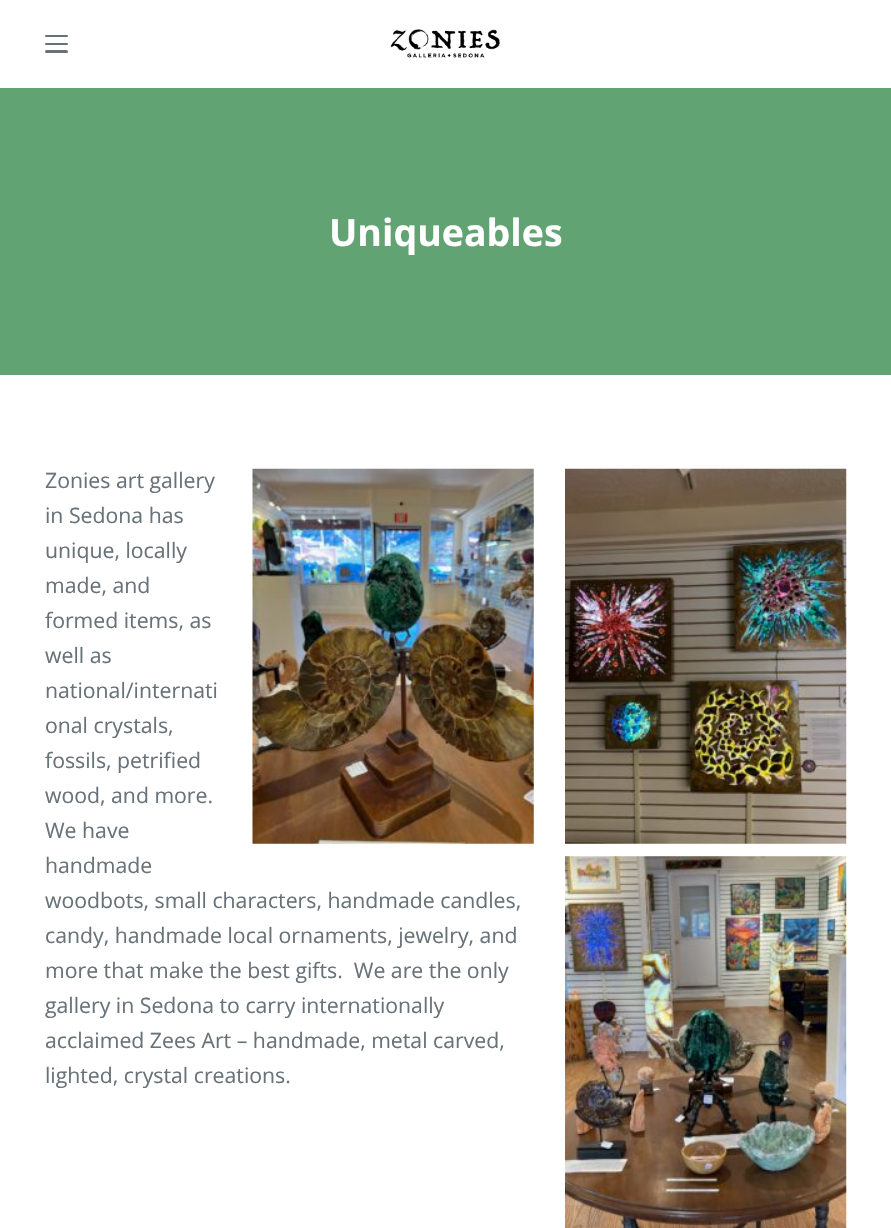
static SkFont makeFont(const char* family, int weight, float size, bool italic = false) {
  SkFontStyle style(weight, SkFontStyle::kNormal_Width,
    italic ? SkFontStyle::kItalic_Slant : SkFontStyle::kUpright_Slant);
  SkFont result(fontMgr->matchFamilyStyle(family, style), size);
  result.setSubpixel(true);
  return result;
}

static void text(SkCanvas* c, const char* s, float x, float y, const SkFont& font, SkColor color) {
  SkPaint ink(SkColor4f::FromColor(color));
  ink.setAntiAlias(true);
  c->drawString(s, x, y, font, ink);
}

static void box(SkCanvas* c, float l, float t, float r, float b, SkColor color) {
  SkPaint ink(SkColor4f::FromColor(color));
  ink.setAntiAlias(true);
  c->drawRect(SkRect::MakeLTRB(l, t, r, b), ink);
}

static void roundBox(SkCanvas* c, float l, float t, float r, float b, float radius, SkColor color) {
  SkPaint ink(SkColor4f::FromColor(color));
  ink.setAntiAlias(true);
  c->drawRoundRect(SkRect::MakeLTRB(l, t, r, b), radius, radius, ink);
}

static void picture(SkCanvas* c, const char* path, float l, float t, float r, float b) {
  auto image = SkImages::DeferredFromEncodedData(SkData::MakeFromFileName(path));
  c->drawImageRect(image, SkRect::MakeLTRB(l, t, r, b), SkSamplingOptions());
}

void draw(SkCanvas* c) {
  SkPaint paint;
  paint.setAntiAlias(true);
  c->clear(0xffffffff);
  roundBox(c, 45, 35, 68, 37, 1, 0xff687279);
  roundBox(c, 45, 43, 68, 45, 1, 0xff687279);
  roundBox(c, 45, 50, 68, 53, 1.5f, 0xff687279);
  picture(c, "img_01.png", 390, 29, 500, 58);
  box(c, 0, 88, 891, 375, 0xff61a373);
  SkFont face1 = makeFont("Open Sans", 700, 37.5f);
  text(c, "Uniqueables", 329, 246, face1, 0xffffffff);
  SkFont face2 = makeFont("Open Sans", 400, 21.25f);
  text(c, "Zonies art gallery", 45, 488, face2, 0xff687279);
  picture(c, "img_02.png", 252, 468, 534, 844);
  picture(c, "img_03.png", 565, 468, 847, 844);
  text(c, "in Sedona has", 45, 523, face2, 0xff687279);
  text(c, "unique, locally", 45, 558, face2, 0xff687279);
  text(c, "made, and", 45, 593, face2, 0xff687279);
  text(c, "formed items, as", 45, 628, face2, 0xff687279);
  text(c, "well as", 45, 663, face2, 0xff687279);
  text(c, "national/internati", 45, 698, face2, 0xff687279);
  text(c, "onal crystals,", 45, 733, face2, 0xff687279);
  text(c, "fossils, petrified", 45, 768, face2, 0xff687279);
  text(c, "wood, and more.", 45, 803, face2, 0xff687279);
  text(c, "We have", 45, 838, face2, 0xff687279);
  text(c, "handmade", 45, 873, face2, 0xff687279);
  picture(c, "img_04.png", 565, 856, 847, 1228);
  text(c, "woodbots, small characters, handmade candles,", 45, 908, face2, 0xff687279);
  text(c, "candy, handmade local ornaments, jewelry, and", 45, 943, face2, 0xff687279);
  text(c, "more that make the best gifts.  We are the only", 45, 978, face2, 0xff687279);
  text(c, "gallery in Sedona to carry internationally", 45, 1013, face2, 0xff687279);
  text(c, "acclaimed Zees Art – handmade, metal carved,", 45, 1048, face2, 0xff687279);
  text(c, "lighted, crystal creations.", 45, 1083, face2, 0xff687279);
}
